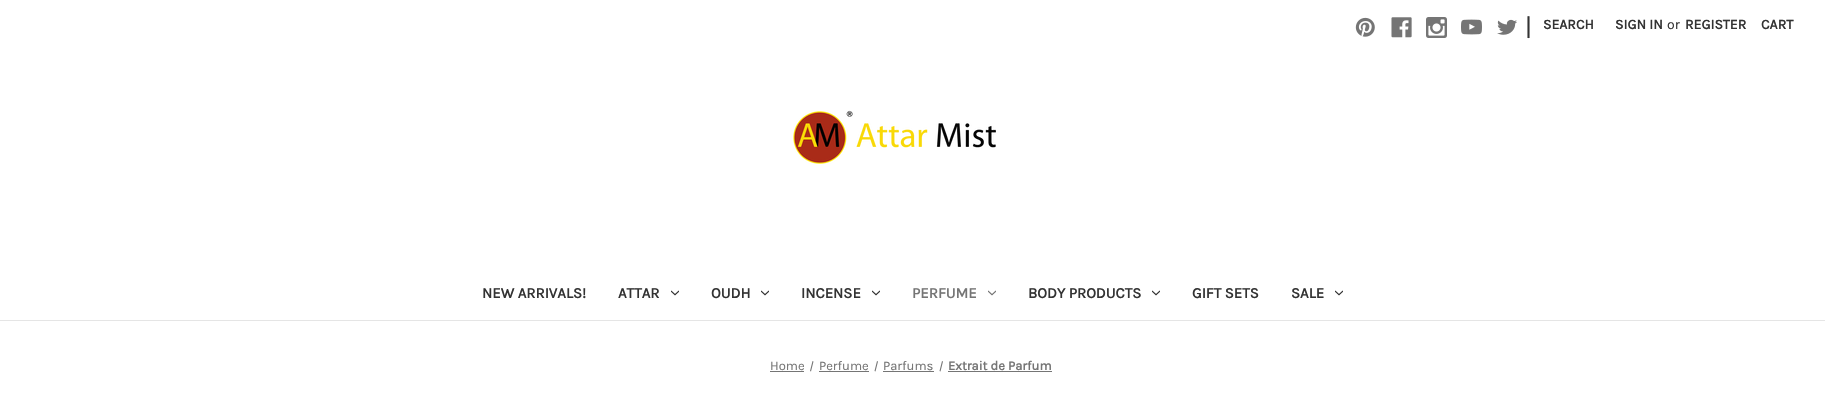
static SkFont makeFont(const char* family, int weight, float size, bool italic = false) {
  SkFontStyle style(weight, SkFontStyle::kNormal_Width,
    italic ? SkFontStyle::kItalic_Slant : SkFontStyle::kUpright_Slant);
  SkFont result(fontMgr->matchFamilyStyle(family, style), size);
  result.setSubpixel(true);
  return result;
}

static void text(SkCanvas* c, const char* s, float x, float y, const SkFont& font, SkColor color) {
  SkPaint ink(SkColor4f::FromColor(color));
  ink.setAntiAlias(true);
  c->drawString(s, x, y, font, ink);
}

static void box(SkCanvas* c, float l, float t, float r, float b, SkColor color) {
  SkPaint ink(SkColor4f::FromColor(color));
  ink.setAntiAlias(true);
  c->drawRect(SkRect::MakeLTRB(l, t, r, b), ink);
}

static void picture(SkCanvas* c, const char* path, float l, float t, float r, float b) {
  auto image = SkImages::DeferredFromEncodedData(SkData::MakeFromFileName(path));
  c->drawImageRect(image, SkRect::MakeLTRB(l, t, r, b), SkSamplingOptions());
}

void draw(SkCanvas* c) {
  SkPaint paint;
  paint.setAntiAlias(true);
  c->clear(0xffffffff);
  box(c, 0, 320, 1825, 321, 0xffe5e5e5);
  picture(c, "img_01.png", 1355, 17, 1375, 37);
  picture(c, "img_02.png", 1391, 17, 1412, 38);
  picture(c, "img_03.png", 1426, 17, 1447, 38);
  picture(c, "img_04.png", 1461, 19, 1482, 35);
  picture(c, "img_05.png", 1497, 19, 1517, 35);
  SkFont face1 = makeFont("Karla", 400, 25);
  text(c, "|", 1525, 35, face1, 0xff333333);
  SkFont face2 = makeFont("Karla", 700, 14);
  text(c, "SEARCH", 1543, 29, face2, 0xff333333);
  text(c, "SIGN IN", 1615, 29, face2, 0xff333333);
  SkFont face3 = makeFont("Karla", 400, 14);
  text(c, "or", 1667, 29, face3, 0xff333333);
  text(c, "REGISTER", 1685, 29, face2, 0xff333333);
  text(c, "CART", 1761, 29, face2, 0xff333333);
  picture(c, "img_06.png", 793, 110, 996, 164);
  SkFont face4 = makeFont("Karla", 700, 15);
  text(c, "NEW ARRIVALS!", 482, 298, face4, 0xff333333);
  text(c, "ATTAR", 618, 298, face4, 0xff333333);
  picture(c, "img_07.png", 671, 290, 679, 296);
  text(c, "OUDH", 711, 298, face4, 0xff333333);
  picture(c, "img_07.png", 761, 290, 769, 296);
  text(c, "INCENSE", 801, 298, face4, 0xff333333);
  picture(c, "img_07.png", 872, 290, 880, 296);
  text(c, "PERFUME", 912, 298, face4, 0xff757575);
  picture(c, "img_08.png", 988, 290, 996, 296);
  text(c, "BODY PRODUCTS", 1028, 298, face4, 0xff333333);
  picture(c, "img_07.png", 1152, 290, 1160, 296);
  text(c, "GIFT SETS", 1192, 298, face4, 0xff333333);
  text(c, "SALE", 1291, 298, face4, 0xff333333);
  picture(c, "img_07.png", 1335, 290, 1343, 296);
  SkFont face5 = makeFont("Karla", 400, 13);
  text(c, "Home", 770, 370, face5, 0xff757575);
  box(c, 770, 371, 804, 372, 0xff757575);
  paint.setColor(0xff757575);
  c->drawPath(SkPathBuilder().moveTo(812.5f, 361).lineTo(813.5f, 361.5f).lineTo(811, 371.5f).lineTo(810, 371).close().detach(), paint);
  text(c, "Perfume", 819, 370, face5, 0xff757575);
  box(c, 819, 371, 869, 372, 0xff757575);
  c->drawPath(SkPathBuilder().moveTo(877, 361).lineTo(878, 361.5f).lineTo(875.5f, 371.5f).lineTo(874.5f, 371).close().detach(), paint);
  text(c, "Parfums", 883, 370, face5, 0xff757575);
  box(c, 883, 371, 934, 372, 0xff757575);
  c->drawPath(SkPathBuilder().moveTo(942, 361).lineTo(943, 361.5f).lineTo(940.5f, 371.5f).lineTo(939.5f, 371).close().detach(), paint);
  SkFont face6 = makeFont("Karla", 700, 13);
  text(c, "Extrait de Parfum", 948, 370, face6, 0xff757575);
  box(c, 948, 371, 1052, 372, 0xff757575);
}
